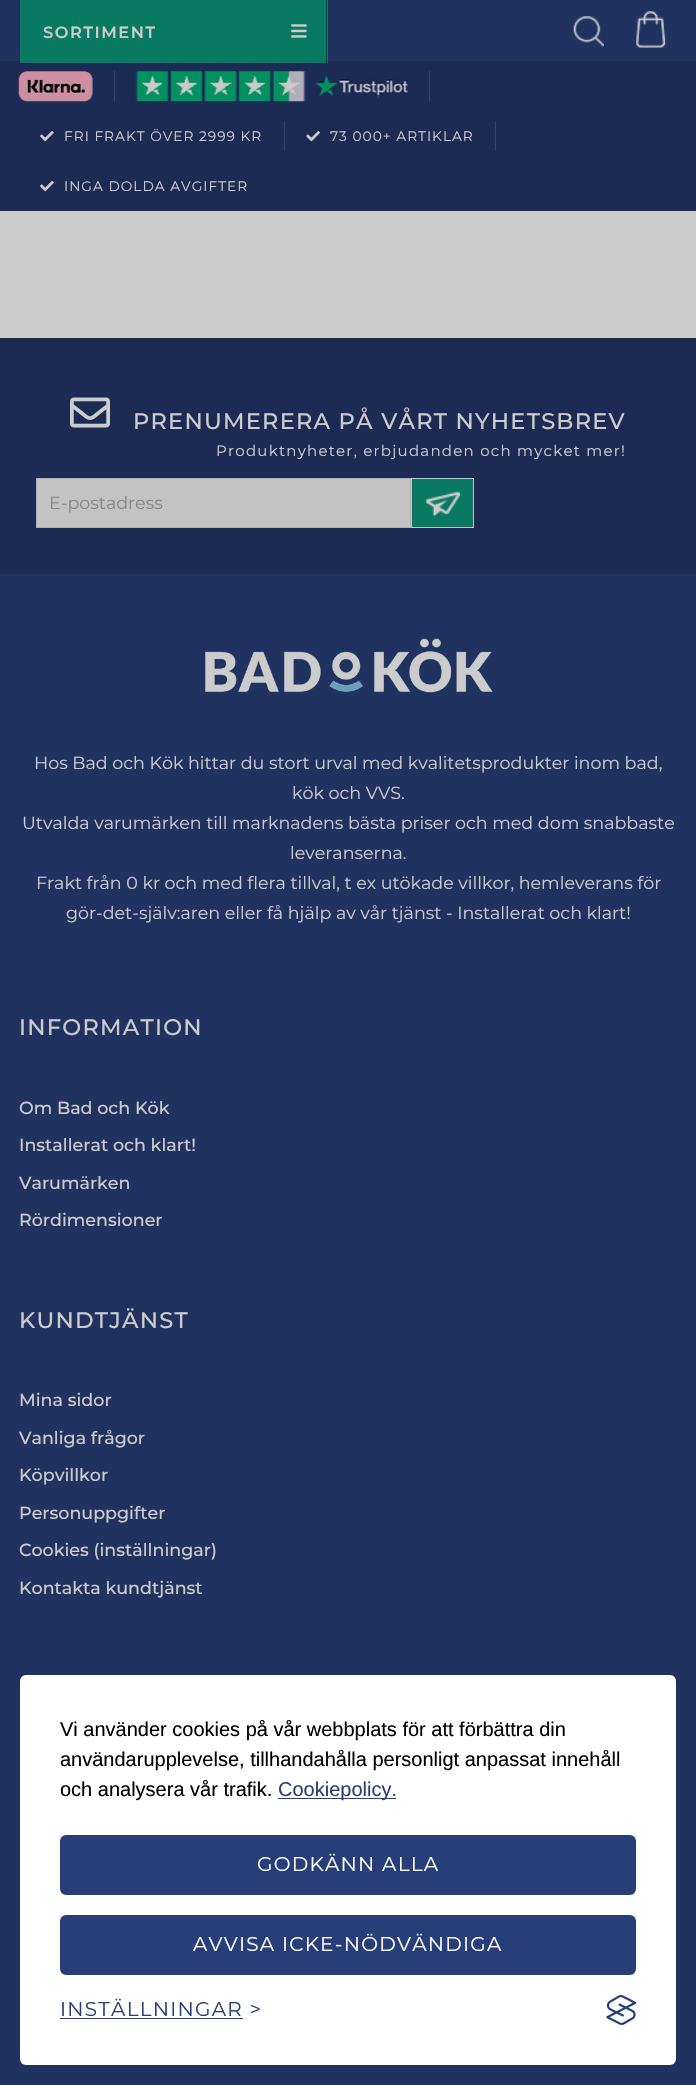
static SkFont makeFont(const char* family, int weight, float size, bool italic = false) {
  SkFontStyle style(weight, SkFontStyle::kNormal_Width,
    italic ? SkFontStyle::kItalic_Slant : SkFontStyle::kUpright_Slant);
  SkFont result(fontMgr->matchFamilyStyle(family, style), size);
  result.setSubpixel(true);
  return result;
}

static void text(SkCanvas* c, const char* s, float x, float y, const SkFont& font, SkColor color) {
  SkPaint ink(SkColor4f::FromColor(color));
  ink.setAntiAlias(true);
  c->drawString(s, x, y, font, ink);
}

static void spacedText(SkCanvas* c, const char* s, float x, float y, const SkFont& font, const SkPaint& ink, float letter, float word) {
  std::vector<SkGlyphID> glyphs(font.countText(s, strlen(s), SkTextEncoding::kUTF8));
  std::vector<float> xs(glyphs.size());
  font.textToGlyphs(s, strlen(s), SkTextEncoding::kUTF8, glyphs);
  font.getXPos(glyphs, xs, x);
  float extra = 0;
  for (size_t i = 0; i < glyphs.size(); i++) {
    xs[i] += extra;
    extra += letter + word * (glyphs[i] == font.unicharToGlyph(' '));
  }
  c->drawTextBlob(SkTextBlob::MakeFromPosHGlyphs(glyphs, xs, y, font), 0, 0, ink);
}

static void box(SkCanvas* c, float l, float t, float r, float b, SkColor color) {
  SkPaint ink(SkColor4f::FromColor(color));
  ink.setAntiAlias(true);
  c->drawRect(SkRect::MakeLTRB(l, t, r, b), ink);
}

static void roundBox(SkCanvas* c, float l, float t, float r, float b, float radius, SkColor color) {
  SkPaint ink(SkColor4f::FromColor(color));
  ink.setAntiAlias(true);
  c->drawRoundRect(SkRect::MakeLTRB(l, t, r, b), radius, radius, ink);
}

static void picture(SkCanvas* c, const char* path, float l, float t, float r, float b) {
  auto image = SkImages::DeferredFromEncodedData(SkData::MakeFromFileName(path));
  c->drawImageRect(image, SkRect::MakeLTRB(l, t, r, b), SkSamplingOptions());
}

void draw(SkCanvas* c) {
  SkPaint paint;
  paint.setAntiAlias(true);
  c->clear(0xffcccccc);
  box(c, 0, 0, 696, 61, 0xff203260);
  box(c, 0, 61, 696, 211, 0xff1c2b54);
  box(c, 20, 0, 328, 63, 0xff087a61);
  box(c, 326, 0, 327, 63, 0xff203260);
  box(c, 19, 61, 20, 63, 0xff203260);
  SkFont face1 = makeFont("Montserrat", 600, 16.25f);
  paint.setColor(0xffcccccc);
  spacedText(c, "SORTIMENT", 43, 38, face1, paint, 1.5f, 0);
  picture(c, "img_01.png", 291, 24, 307, 38);
  picture(c, "img_02.png", 573, 16, 604, 47);
  picture(c, "img_03.png", 636, 11, 666, 48);
  box(c, 114, 71, 115, 101, 0xff354366);
  picture(c, "img_04.png", 18, 71, 93, 102);
  box(c, 429, 71, 430, 101, 0xff354366);
  picture(c, "img_05.png", 135, 71, 408, 102);
  box(c, 284, 121, 285, 151, 0xff354366);
  picture(c, "img_06.png", 40, 131, 54, 142);
  SkFont face2 = makeFont("Montserrat", 100, 13.75f);
  spacedText(c, "FRI FRAKT ÖVER 2999 KR", 64, 141, face2, paint, 1, 0);
  box(c, 495, 121, 496, 151, 0xff354366);
  picture(c, "img_07.png", 306, 131, 320, 142);
  spacedText(c, "73 000+ ARTIKLAR", 330, 141, face2, paint, 1, 0);
  picture(c, "img_06.png", 40, 181, 54, 192);
  spacedText(c, "INGA DOLDA AVGIFTER", 64, 191, face2, paint, 1, 0);
  box(c, 0, 338, 696, 574, 0xff1c2b54);
  picture(c, "img_08.png", 70, 397, 110, 428);
  SkFont face3 = makeFont("Montserrat", 500, 22.5f);
  spacedText(c, "PRENUMERERA PÅ VÅRT NYHETSBREV", 133, 429, face3, paint, 1.25f, 0);
  SkFont face4 = makeFont("Montserrat", 100, 15);
  spacedText(c, "Produktnyheter, erbjudanden och mycket mer!", 216, 456, face4, paint, 1.25f, 0);
  paint.setColor(0xffc3c3c3);
  c->drawRect(SkRect::MakeLTRB(36.5f, 478.5f, 410.5f, 527.5f), paint);
  paint.setStyle(SkPaint::kStroke_Style);
  paint.setStrokeWidth(1);
  paint.setColor(0xffb1b1b1);
  c->drawRect(SkRect::MakeLTRB(36.5f, 478.5f, 410.5f, 527.5f), paint);
  SkFont face5 = makeFont("Montserrat", 100, 17.5f);
  text(c, "E-postadress", 49, 509, face5, 0xff888888);
  box(c, 412, 479, 473, 527, 0xff087a61);
  picture(c, "img_09.png", 426, 491, 462, 517);
  paint.setColor(0xffc6c6c6);
  c->drawRect(SkRect::MakeLTRB(411.5f, 478.5f, 473.5f, 527.5f), paint);
  box(c, 0, 574, 696, 2085, 0xff203260);
  picture(c, "img_10.png", 205, 638, 493, 693);
  text(c, "Hos Bad och Kök hittar du stort urval med kvalitetsprodukter inom bad,", 34, 769, face5, 0xffcccccc);
  text(c, "kök och VVS.", 292, 799, face5, 0xffcccccc);
  text(c, "Utvalda varumärken till marknadens bästa priser och med dom snabbaste", 22, 829, face5, 0xffcccccc);
  text(c, "leveranserna.", 290, 859, face5, 0xffcccccc);
  text(c, "Frakt från 0 kr och med flera tillval, t ex utökade villkor, hemleverans för", 36, 889, face5, 0xffcccccc);
  text(c, "gör-det-själv:aren eller få hjälp av vår tjänst - Installerat och klart!", 66, 919, face5, 0xffcccccc);
  paint.setStyle(SkPaint::kFill_Style);
  paint.setColor(0xffcccccc);
  spacedText(c, "INFORMATION", 19, 1035, face3, paint, 1.25f, 0);
  SkFont face6 = makeFont("Montserrat", 500, 17.5f);
  text(c, "Om Bad och Kök", 19, 1114, face6, 0xffcccccc);
  text(c, "Installerat och klart!", 19, 1151, face6, 0xffcccccc);
  text(c, "Varumärken", 19, 1189, face6, 0xffcccccc);
  text(c, "Rördimensioner", 19, 1226, face6, 0xffcccccc);
  spacedText(c, "KUNDTJÄNST", 19, 1328, face3, paint, 1.25f, 0);
  text(c, "Mina sidor", 19, 1406, face6, 0xffcccccc);
  text(c, "Vanliga frågor", 19, 1444, face6, 0xffcccccc);
  text(c, "Köpvillkor", 19, 1481, face6, 0xffcccccc);
  text(c, "Personuppgifter", 19, 1519, face6, 0xffcccccc);
  text(c, "Cookies (inställningar)", 19, 1556, face6, 0xffcccccc);
  text(c, "Kontakta kundtjänst", 19, 1594, face6, 0xffcccccc);
  roundBox(c, 20, 1675, 676, 2065, 6, 0xffffffff);
  SkFont face7 = makeFont("Liberation Sans", 400, 20);
  text(c, "Vi använder cookies på vår webbplats för att förbättra din", 60, 1736, face7, 0xff000000);
  text(c, "användarupplevelse, tillhandahålla personligt anpassat innehåll", 60, 1766, face7, 0xff000000);
  text(c, "och analysera vår trafik.", 60, 1796, face7, 0xff000000);
  box(c, 278, 1798, 396, 1799, 0xff283e78);
  text(c, "Cookiepolicy.", 278, 1796, face7, 0xff283e78);
  paint.setColor(0xff283e78);
  c->drawRoundRect(SkRect::MakeLTRB(61.5f, 1836.5f, 634.5f, 1893.5f), 4.5f, 4.5f, paint);
  paint.setStyle(SkPaint::kStroke_Style);
  paint.setStrokeWidth(3);
  c->drawRoundRect(SkRect::MakeLTRB(61.5f, 1836.5f, 634.5f, 1893.5f), 4.5f, 4.5f, paint);
  SkFont face8 = makeFont("Montserrat", 100, 20);
  paint.setStyle(SkPaint::kFill_Style);
  paint.setColor(0xffffffff);
  spacedText(c, "GODKÄNN ALLA", 257, 1871, face8, paint, 1.25f, 0);
  paint.setColor(0xff283e78);
  c->drawRoundRect(SkRect::MakeLTRB(61.5f, 1916.5f, 634.5f, 1973.5f), 4.5f, 4.5f, paint);
  paint.setStyle(SkPaint::kStroke_Style);
  c->drawRoundRect(SkRect::MakeLTRB(61.5f, 1916.5f, 634.5f, 1973.5f), 4.5f, 4.5f, paint);
  paint.setStyle(SkPaint::kFill_Style);
  paint.setColor(0xffffffff);
  spacedText(c, "AVVISA ICKE-NÖDVÄNDIGA", 193, 1951, face8, paint, 1.25f, 0);
  paint.setColor(0xff283e78);
  spacedText(c, "INSTÄLLNINGAR >", 60, 2016, face8, paint, 1.25f, 0);
  box(c, 60, 2018, 243, 2019, 0xff283e78);
  picture(c, "img_11.png", 606, 1995, 636, 2025);
}
